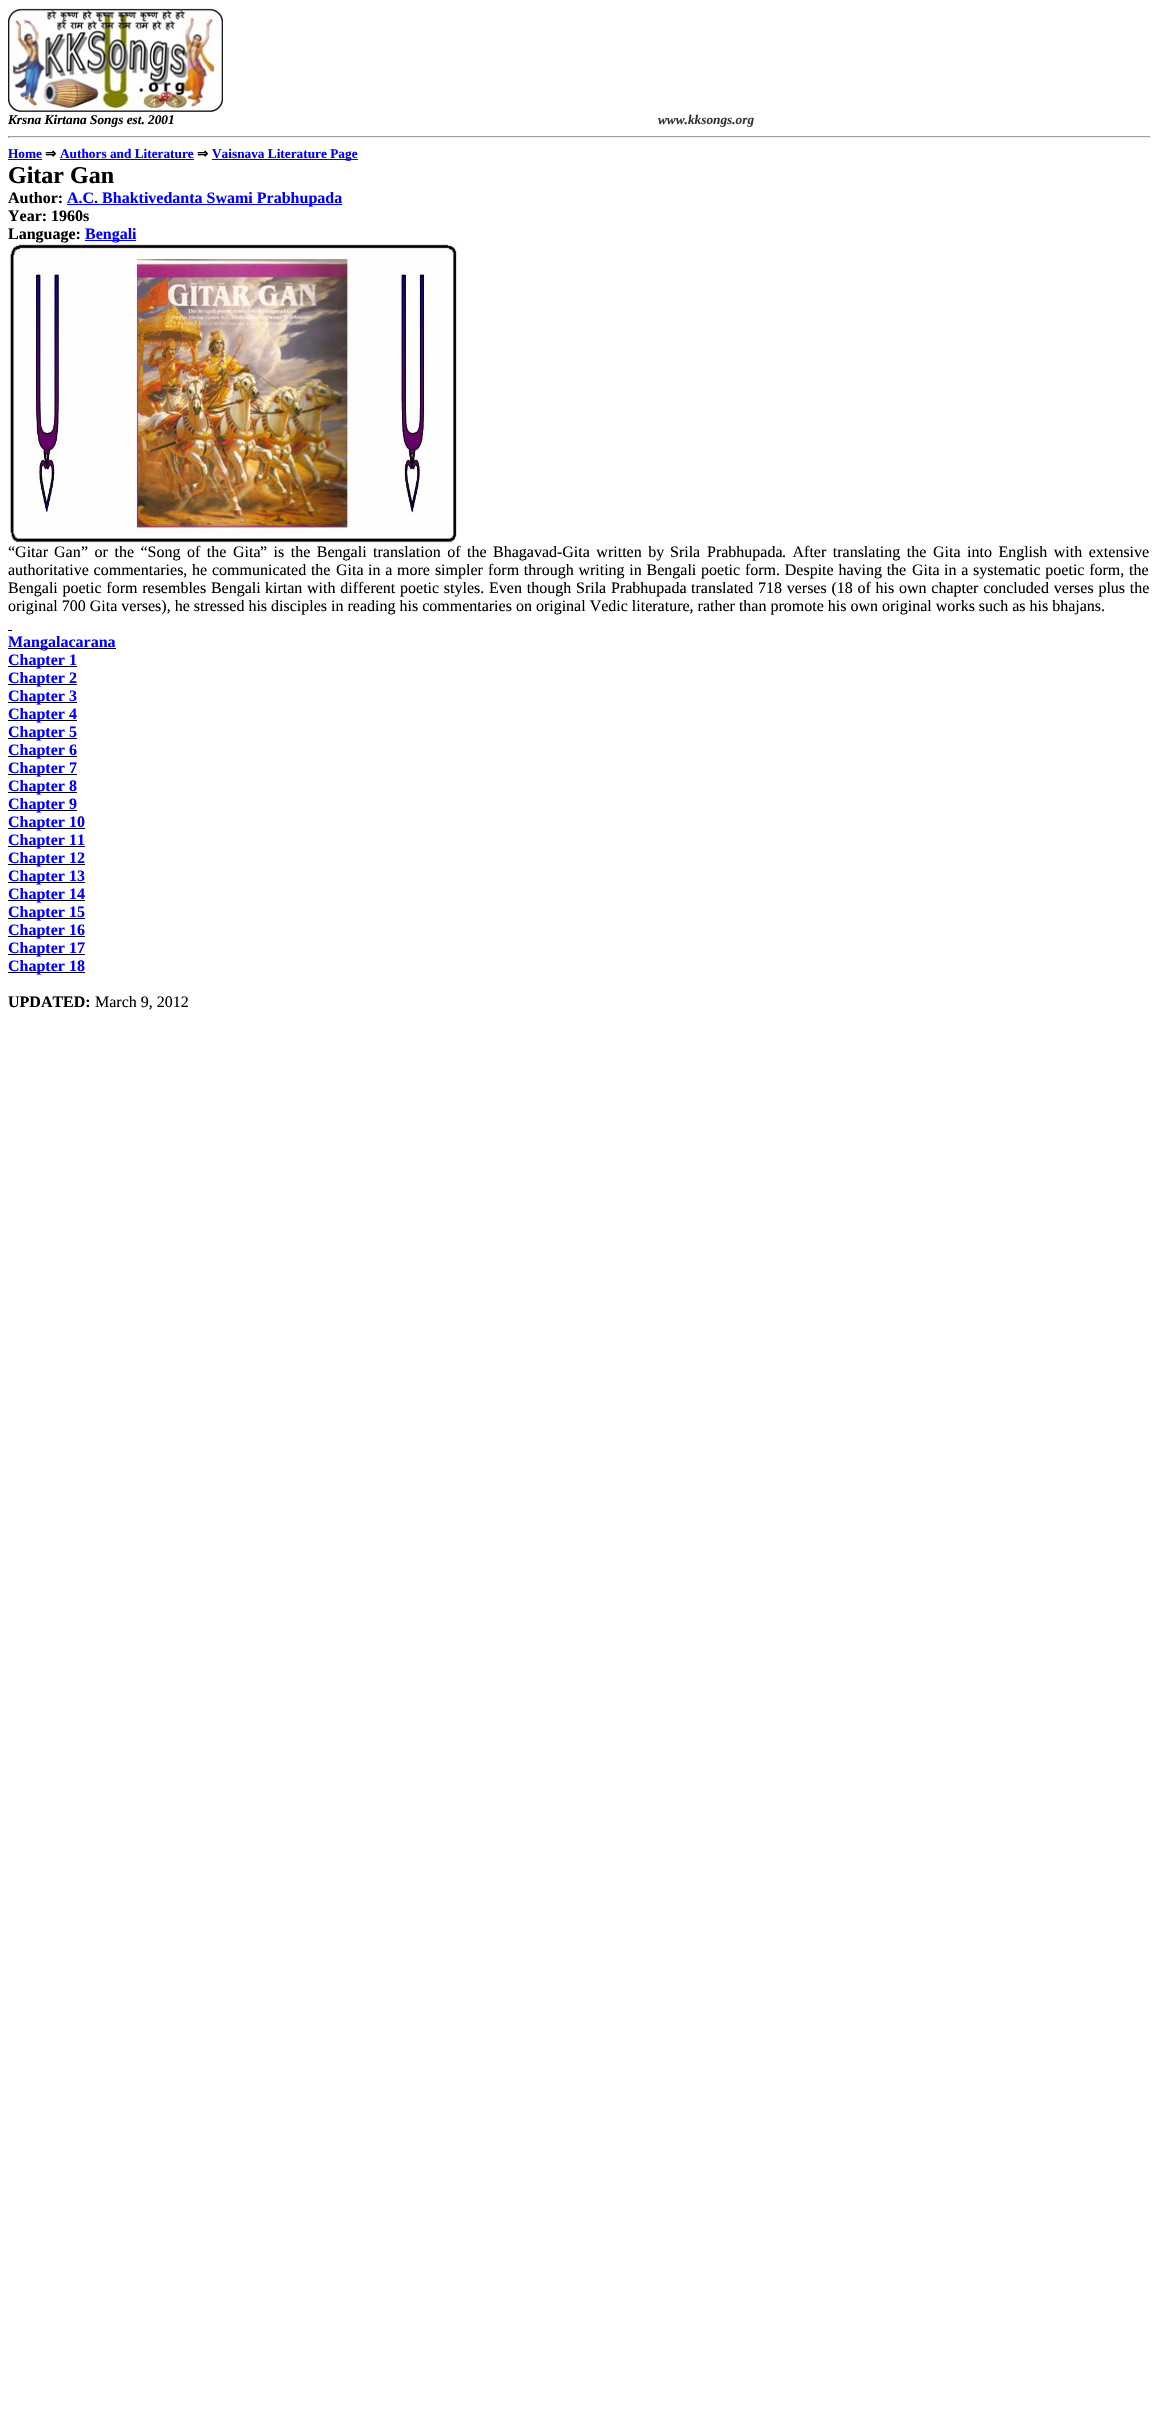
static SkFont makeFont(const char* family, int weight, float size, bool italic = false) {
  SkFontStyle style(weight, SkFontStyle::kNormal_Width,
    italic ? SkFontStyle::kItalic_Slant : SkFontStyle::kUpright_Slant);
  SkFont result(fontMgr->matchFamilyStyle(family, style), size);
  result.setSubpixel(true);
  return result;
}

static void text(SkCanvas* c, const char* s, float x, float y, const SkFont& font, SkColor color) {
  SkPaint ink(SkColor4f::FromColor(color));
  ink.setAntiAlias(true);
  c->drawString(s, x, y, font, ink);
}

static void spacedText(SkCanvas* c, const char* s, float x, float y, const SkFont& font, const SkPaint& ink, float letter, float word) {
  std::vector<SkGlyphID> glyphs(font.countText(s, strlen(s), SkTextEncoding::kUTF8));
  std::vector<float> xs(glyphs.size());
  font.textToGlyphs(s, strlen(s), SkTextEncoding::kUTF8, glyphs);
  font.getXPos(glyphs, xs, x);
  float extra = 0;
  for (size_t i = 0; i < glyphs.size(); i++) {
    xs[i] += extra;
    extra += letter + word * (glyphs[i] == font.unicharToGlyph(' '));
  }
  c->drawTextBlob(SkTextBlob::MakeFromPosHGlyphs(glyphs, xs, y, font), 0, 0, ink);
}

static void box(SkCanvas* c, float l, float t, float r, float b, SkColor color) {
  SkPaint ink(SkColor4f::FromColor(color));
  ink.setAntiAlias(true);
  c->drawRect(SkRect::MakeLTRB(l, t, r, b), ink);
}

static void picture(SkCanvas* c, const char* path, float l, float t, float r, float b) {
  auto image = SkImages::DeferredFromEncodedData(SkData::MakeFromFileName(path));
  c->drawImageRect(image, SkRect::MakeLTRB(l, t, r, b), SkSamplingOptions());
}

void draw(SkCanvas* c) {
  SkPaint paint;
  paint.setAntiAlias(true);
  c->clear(0xffffffff);
  picture(c, "img_01.png", 8, 8, 223, 112);
  SkFont face1 = makeFont("Liberation Serif", 700, 13.3f, true);
  text(c, "Krsna Kirtana Songs est. 2001", 8, 124, face1, 0xff000000);
  text(c, "www.kksongs.org", 658, 124, face1, 0xff333333);
  box(c, 8, 136, 1151, 137, 0xff9f9f9f);
  box(c, 1150, 136, 1151, 138, 0xffeeeeee);
  box(c, 8, 137, 1151, 138, 0xffeeeeee);
  box(c, 8, 136, 9, 138, 0xff9f9f9f);
  SkFont face2 = makeFont("Liberation Serif", 700, 13.3f);
  text(c, "Home", 8, 158, face2, 0xff0000ff);
  box(c, 8, 159, 42, 160, 0xff0000ff);
  SkFont face3 = makeFont("DejaVu Sans", 700, 13.3f);
  text(c, "⇒", 45, 158, face3, 0xff000000);
  text(c, "Authors and Literature", 60, 158, face2, 0xff0000ff);
  box(c, 60, 159, 194, 160, 0xff0000ff);
  text(c, "⇒", 197, 158, face3, 0xff000000);
  box(c, 212, 159, 358, 160, 0xff0000ff);
  text(c, "Vaisnava Literature Page", 212, 158, face2, 0xff0000ff);
  SkFont face4 = makeFont("Liberation Serif", 700, 24);
  text(c, "Gitar Gan", 8, 183, face4, 0xff000000);
  SkFont face5 = makeFont("Liberation Serif", 700, 16);
  text(c, "Author:", 8, 203, face5, 0xff000000);
  box(c, 67, 204, 342, 205, 0xff0000ff);
  text(c, "A.C. Bhaktivedanta Swami Prabhupada", 67, 203, face5, 0xff0000ff);
  text(c, "Year: 1960s", 8, 221, face5, 0xff000000);
  text(c, "Language:", 8, 239, face5, 0xff000000);
  box(c, 85, 240, 136, 241, 0xff0000ff);
  text(c, "Bengali", 85, 239, face5, 0xff0000ff);
  picture(c, "img_02.png", 8, 243, 458, 543);
  SkFont face6 = makeFont("Liberation Serif", 400, 16);
  text(c, "“Gitar", 8, 557, face6, 0xff000000);
  text(c, "Gan", 54, 557, face6, 0xff000000);
  paint.setColor(0xff000000);
  spacedText(c, "” or the “Song of the", 81, 557, face6, paint, 0, 2.5f);
  text(c, "Gita", 233, 557, face6, 0xff000000);
  spacedText(c, "” is the Bengali translation of the Bhagavad-Gita written by", 260, 557, face6, paint, 0, 2.5f);
  text(c, "Srila", 670, 557, face6, 0xff000000);
  text(c, "Prabhupada", 707, 557, face6, 0xff000000);
  spacedText(c, ". After translating the", 782, 557, face6, paint, 0, 2.5f);
  text(c, "Gita", 933, 557, face6, 0xff000000);
  spacedText(c, "into English with extensive", 967, 557, face6, paint, 0, 2.5f);
  spacedText(c, "authoritative commentaries, he communicated the", 8, 575, face6, paint, 0, 0.75f);
  text(c, "Gita", 336, 575, face6, 0xff000000);
  spacedText(c, "in a", 368, 575, face6, paint, 0, 0.75f);
  spacedText(c, "more simpler", 397, 575, face6, paint, 0, 1);
  spacedText(c, "form through writing in Bengali poetic form. Despite having the", 488, 575, face6, paint, 0, 0.75f);
  text(c, "Gita", 912, 575, face6, 0xff000000);
  spacedText(c, "in a systematic poetic form, the", 944, 575, face6, paint, 0, 0.75f);
  spacedText(c, "Bengali poetic form resembles Bengali", 8, 593, face6, paint, 0, 0.75f);
  text(c, "kirtan", 265, 593, face6, 0xff000000);
  spacedText(c, "with different poetic styles. Even though", 307, 593, face6, paint, 0, 0.75f);
  text(c, "Srila", 576, 593, face6, 0xff000000);
  text(c, "Prabhupada", 611, 593, face6, 0xff000000);
  spacedText(c, "translated 718 verses (18 of his own chapter concluded verses plus the", 691, 593, face6, paint, 0, 0.75f);
  text(c, "original 700 Gita verses), he stressed his disciples in reading his commentaries on original Vedic literature, rather than promote his own original works such as his bhajans.", 8, 611, face6, 0xff000000);
  box(c, 8, 630, 12, 631, 0xff000000);
  box(c, 8, 648, 116, 649, 0xff000000);
  text(c, "Mangalacarana", 8, 647, face5, 0xff0000ff);
  box(c, 8, 666, 77, 667, 0xff000000);
  text(c, "Chapter 1", 8, 665, face5, 0xff0000ff);
  box(c, 8, 684, 77, 685, 0xff000000);
  text(c, "Chapter 2", 8, 683, face5, 0xff0000ff);
  box(c, 8, 702, 77, 703, 0xff000000);
  text(c, "Chapter 3", 8, 701, face5, 0xff0000ff);
  box(c, 8, 720, 77, 721, 0xff000000);
  text(c, "Chapter 4", 8, 719, face5, 0xff0000ff);
  box(c, 8, 738, 77, 739, 0xff000000);
  text(c, "Chapter 5", 8, 737, face5, 0xff0000ff);
  box(c, 8, 756, 77, 757, 0xff000000);
  text(c, "Chapter 6", 8, 755, face5, 0xff0000ff);
  box(c, 8, 774, 77, 775, 0xff000000);
  text(c, "Chapter 7", 8, 773, face5, 0xff0000ff);
  box(c, 8, 792, 77, 793, 0xff000000);
  text(c, "Chapter 8", 8, 791, face5, 0xff0000ff);
  box(c, 8, 810, 77, 811, 0xff000000);
  text(c, "Chapter 9", 8, 809, face5, 0xff0000ff);
  box(c, 8, 828, 85, 829, 0xff000000);
  text(c, "Chapter 10", 8, 827, face5, 0xff0000ff);
  box(c, 8, 846, 85, 847, 0xff000000);
  text(c, "Chapter 11", 8, 845, face5, 0xff0000ff);
  box(c, 8, 864, 85, 865, 0xff000000);
  text(c, "Chapter 12", 8, 863, face5, 0xff0000ff);
  box(c, 8, 882, 85, 883, 0xff000000);
  text(c, "Chapter 13", 8, 881, face5, 0xff0000ff);
  box(c, 8, 900, 85, 901, 0xff000000);
  text(c, "Chapter 14", 8, 899, face5, 0xff0000ff);
  box(c, 8, 918, 85, 919, 0xff000000);
  text(c, "Chapter 15", 8, 917, face5, 0xff0000ff);
  box(c, 8, 936, 85, 937, 0xff000000);
  text(c, "Chapter 16", 8, 935, face5, 0xff0000ff);
  box(c, 8, 954, 85, 955, 0xff000000);
  text(c, "Chapter 17", 8, 953, face5, 0xff0000ff);
  box(c, 8, 972, 85, 973, 0xff000000);
  text(c, "Chapter 18", 8, 971, face5, 0xff0000ff);
  text(c, "UPDATED:", 8, 1007, face5, 0xff000000);
  text(c, "March 9, 2012", 95, 1007, face6, 0xff000000);
}
